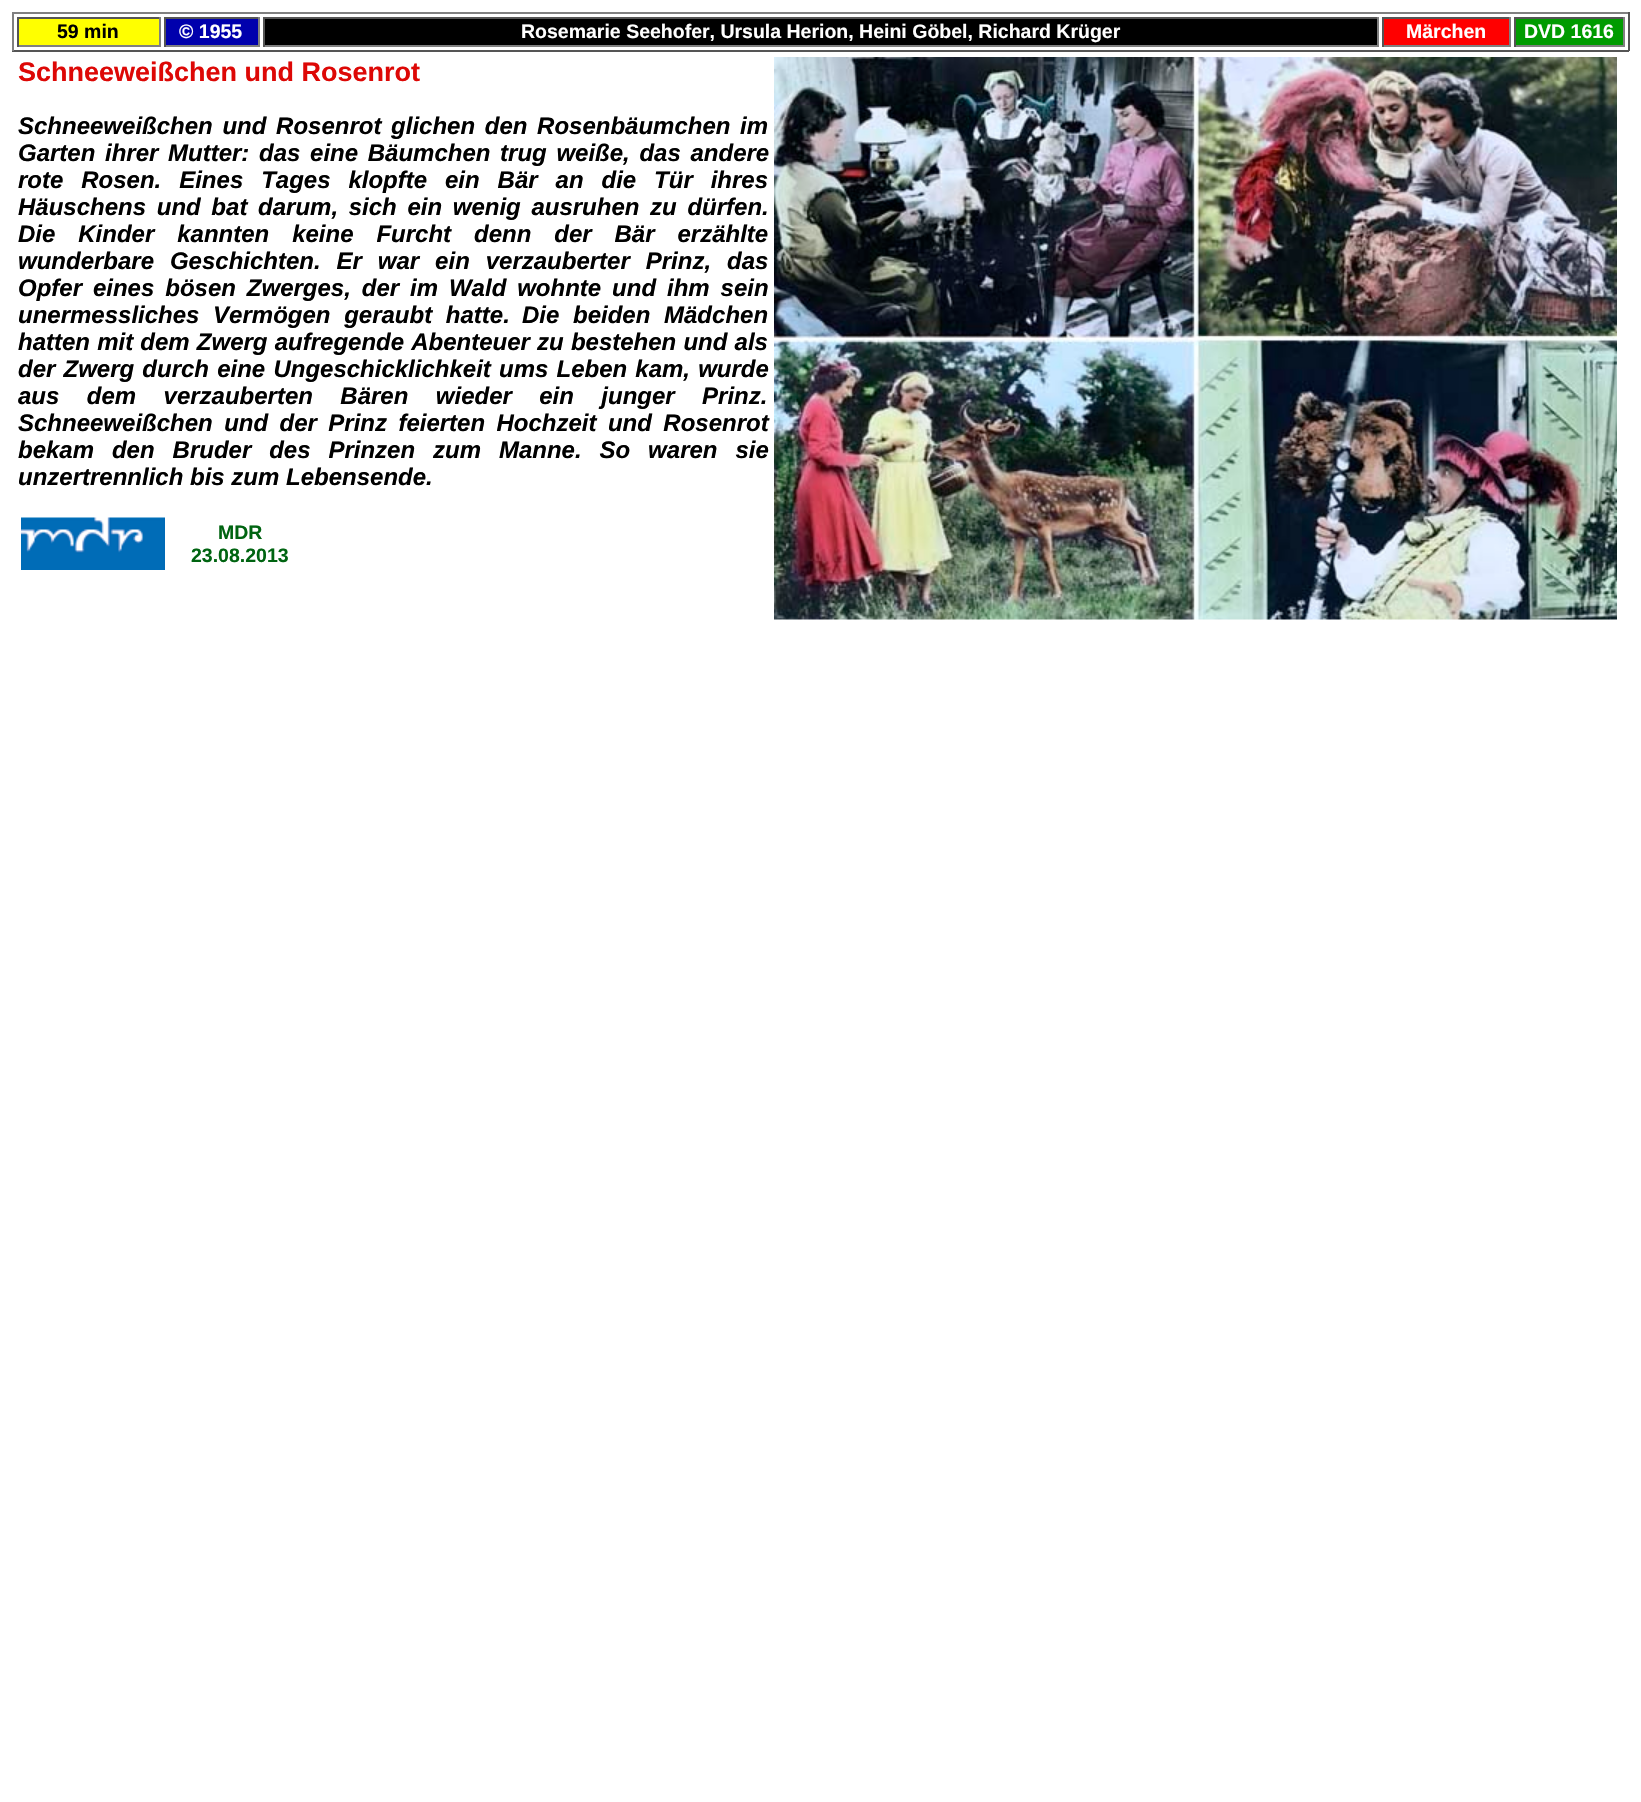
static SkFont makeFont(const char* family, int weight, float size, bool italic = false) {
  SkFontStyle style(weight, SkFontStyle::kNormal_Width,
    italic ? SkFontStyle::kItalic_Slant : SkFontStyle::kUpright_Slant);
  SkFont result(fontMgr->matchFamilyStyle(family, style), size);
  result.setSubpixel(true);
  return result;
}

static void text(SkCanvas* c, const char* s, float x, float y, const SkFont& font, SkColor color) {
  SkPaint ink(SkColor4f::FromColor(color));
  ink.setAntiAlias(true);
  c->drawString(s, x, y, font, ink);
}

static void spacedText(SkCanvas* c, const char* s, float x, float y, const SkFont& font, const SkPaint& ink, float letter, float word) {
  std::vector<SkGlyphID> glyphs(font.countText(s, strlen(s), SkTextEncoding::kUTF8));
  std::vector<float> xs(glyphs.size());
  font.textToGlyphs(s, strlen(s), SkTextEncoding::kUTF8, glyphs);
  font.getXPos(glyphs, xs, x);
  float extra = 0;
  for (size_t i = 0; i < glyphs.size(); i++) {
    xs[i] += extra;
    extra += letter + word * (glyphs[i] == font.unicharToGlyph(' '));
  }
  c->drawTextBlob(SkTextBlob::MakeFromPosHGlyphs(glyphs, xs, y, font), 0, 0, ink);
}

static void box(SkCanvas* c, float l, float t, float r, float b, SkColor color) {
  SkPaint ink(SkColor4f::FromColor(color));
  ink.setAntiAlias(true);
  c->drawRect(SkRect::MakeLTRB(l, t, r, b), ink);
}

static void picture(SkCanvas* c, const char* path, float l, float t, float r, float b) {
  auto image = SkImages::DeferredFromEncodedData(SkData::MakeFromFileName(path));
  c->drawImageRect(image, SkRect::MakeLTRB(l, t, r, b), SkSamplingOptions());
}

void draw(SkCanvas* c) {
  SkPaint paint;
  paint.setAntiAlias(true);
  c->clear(0xffffffff);
  box(c, 12, 12, 1629, 14, 0xff808080);
  box(c, 1628, 12, 1630, 51, 0xff555555);
  box(c, 12, 50, 1629, 52, 0xff555555);
  box(c, 12, 12, 14, 51, 0xff808080);
  box(c, 19, 19, 159, 45, 0xffffff00);
  box(c, 17, 17, 161, 19, 0xff555555);
  box(c, 159, 17, 161, 47, 0xff808080);
  box(c, 17, 45, 161, 47, 0xff808080);
  box(c, 17, 17, 19, 47, 0xff555555);
  SkFont face1 = makeFont("Liberation Sans", 700, 19.5f);
  text(c, "59 min", 57, 38, face1, 0xff000000);
  box(c, 166, 19, 258, 45, 0xff0000ad);
  box(c, 164, 17, 260, 19, 0xff555555);
  box(c, 258, 17, 260, 47, 0xff808080);
  box(c, 164, 45, 260, 47, 0xff808080);
  box(c, 164, 17, 166, 47, 0xff555555);
  text(c, "© 1955", 179, 38, face1, 0xffffffff);
  box(c, 265, 19, 1377, 45, 0xff000000);
  box(c, 263, 17, 1379, 19, 0xff555555);
  box(c, 1377, 17, 1379, 47, 0xff808080);
  box(c, 263, 45, 1379, 47, 0xff808080);
  box(c, 263, 17, 265, 47, 0xff555555);
  text(c, "Rosemarie Seehofer, Ursula Herion, Heini Göbel, Richard Krüger", 521, 38, face1, 0xffffffff);
  box(c, 1384, 19, 1509, 45, 0xffff0000);
  box(c, 1382, 17, 1511, 19, 0xff555555);
  box(c, 1509, 17, 1511, 47, 0xff808080);
  box(c, 1382, 45, 1511, 47, 0xff808080);
  box(c, 1382, 17, 1384, 47, 0xff555555);
  text(c, "Märchen", 1406, 38, face1, 0xffffffff);
  box(c, 1516, 19, 1623, 45, 0xff009b00);
  box(c, 1514, 17, 1625, 19, 0xff555555);
  box(c, 1623, 17, 1625, 47, 0xff808080);
  box(c, 1514, 45, 1625, 47, 0xff808080);
  box(c, 1514, 17, 1516, 47, 0xff555555);
  text(c, "DVD 1616", 1524, 38, face1, 0xffffffff);
  SkFont face2 = makeFont("Liberation Sans", 700, 27);
  text(c, "Schneeweißchen und Rosenrot", 18, 81, face2, 0xffdd0806);
  picture(c, "img_01.png", 774, 57, 1617, 620);
  SkFont face3 = makeFont("Liberation Sans", 700, 24, true);
  paint.setColor(0xff000000);
  spacedText(c, "Schneeweißchen und Rosenrot glichen den Rosenbäumchen im", 18, 134, face3, paint, 0, 3);
  spacedText(c, "Garten ihrer Mutter: das eine Bäumchen trug weiße, das andere", 18, 161, face3, paint, 0, 3);
  spacedText(c, "rote Rosen. Eines Tages klopfte ein Bär an die Tür ihres", 18, 188, face3, paint, 0, 11.25f);
  spacedText(c, "Häuschens und bat darum, sich ein wenig ausruhen zu dürfen.", 18, 215, face3, paint, 0, 4);
  spacedText(c, "Die Kinder kannten keine Furcht denn der Bär erzählte", 18, 242, face3, paint, 0, 16.25f);
  spacedText(c, "wunderbare Geschichten. Er war ein verzauberter Prinz, das", 18, 269, face3, paint, 0, 9.25f);
  spacedText(c, "Opfer eines bösen Zwerges, der im Wald wohnte und ihm sein", 18, 296, face3, paint, 0, 4.25f);
  spacedText(c, "unermessliches Vermögen geraubt hatte.", 18, 323, face3, paint, 0, 7);
  spacedText(c, "Die beiden Mädchen", 522, 323, face3, paint, 0, 7);
  spacedText(c, "hatten mit dem Zwerg aufregende Abenteuer zu bestehen und als", 18, 350, face3, paint, 0, 0.5f);
  spacedText(c, "der Zwerg durch eine Ungeschicklichkeit ums Leben kam, wurde", 18, 377, face3, paint, 0, 1.5f);
  spacedText(c, "aus dem verzauberten Bären wieder ein junger Prinz.", 18, 404, face3, paint, 0, 20.75f);
  spacedText(c, "Schneeweißchen und der Prinz feierten Hochzeit und Rosenrot", 18, 431, face3, paint, 0, 4.75f);
  spacedText(c, "bekam den Bruder des Prinzen zum Manne. So waren sie", 18, 458, face3, paint, 0, 11.25f);
  text(c, "unzertrennlich bis zum Lebensende.", 18, 485, face3, 0xff000000);
  picture(c, "img_02.png", 21, 517, 165, 570);
  text(c, "MDR", 218, 539, face1, 0xff006411);
  text(c, "23.08.2013", 191, 562, face1, 0xff006411);
}
